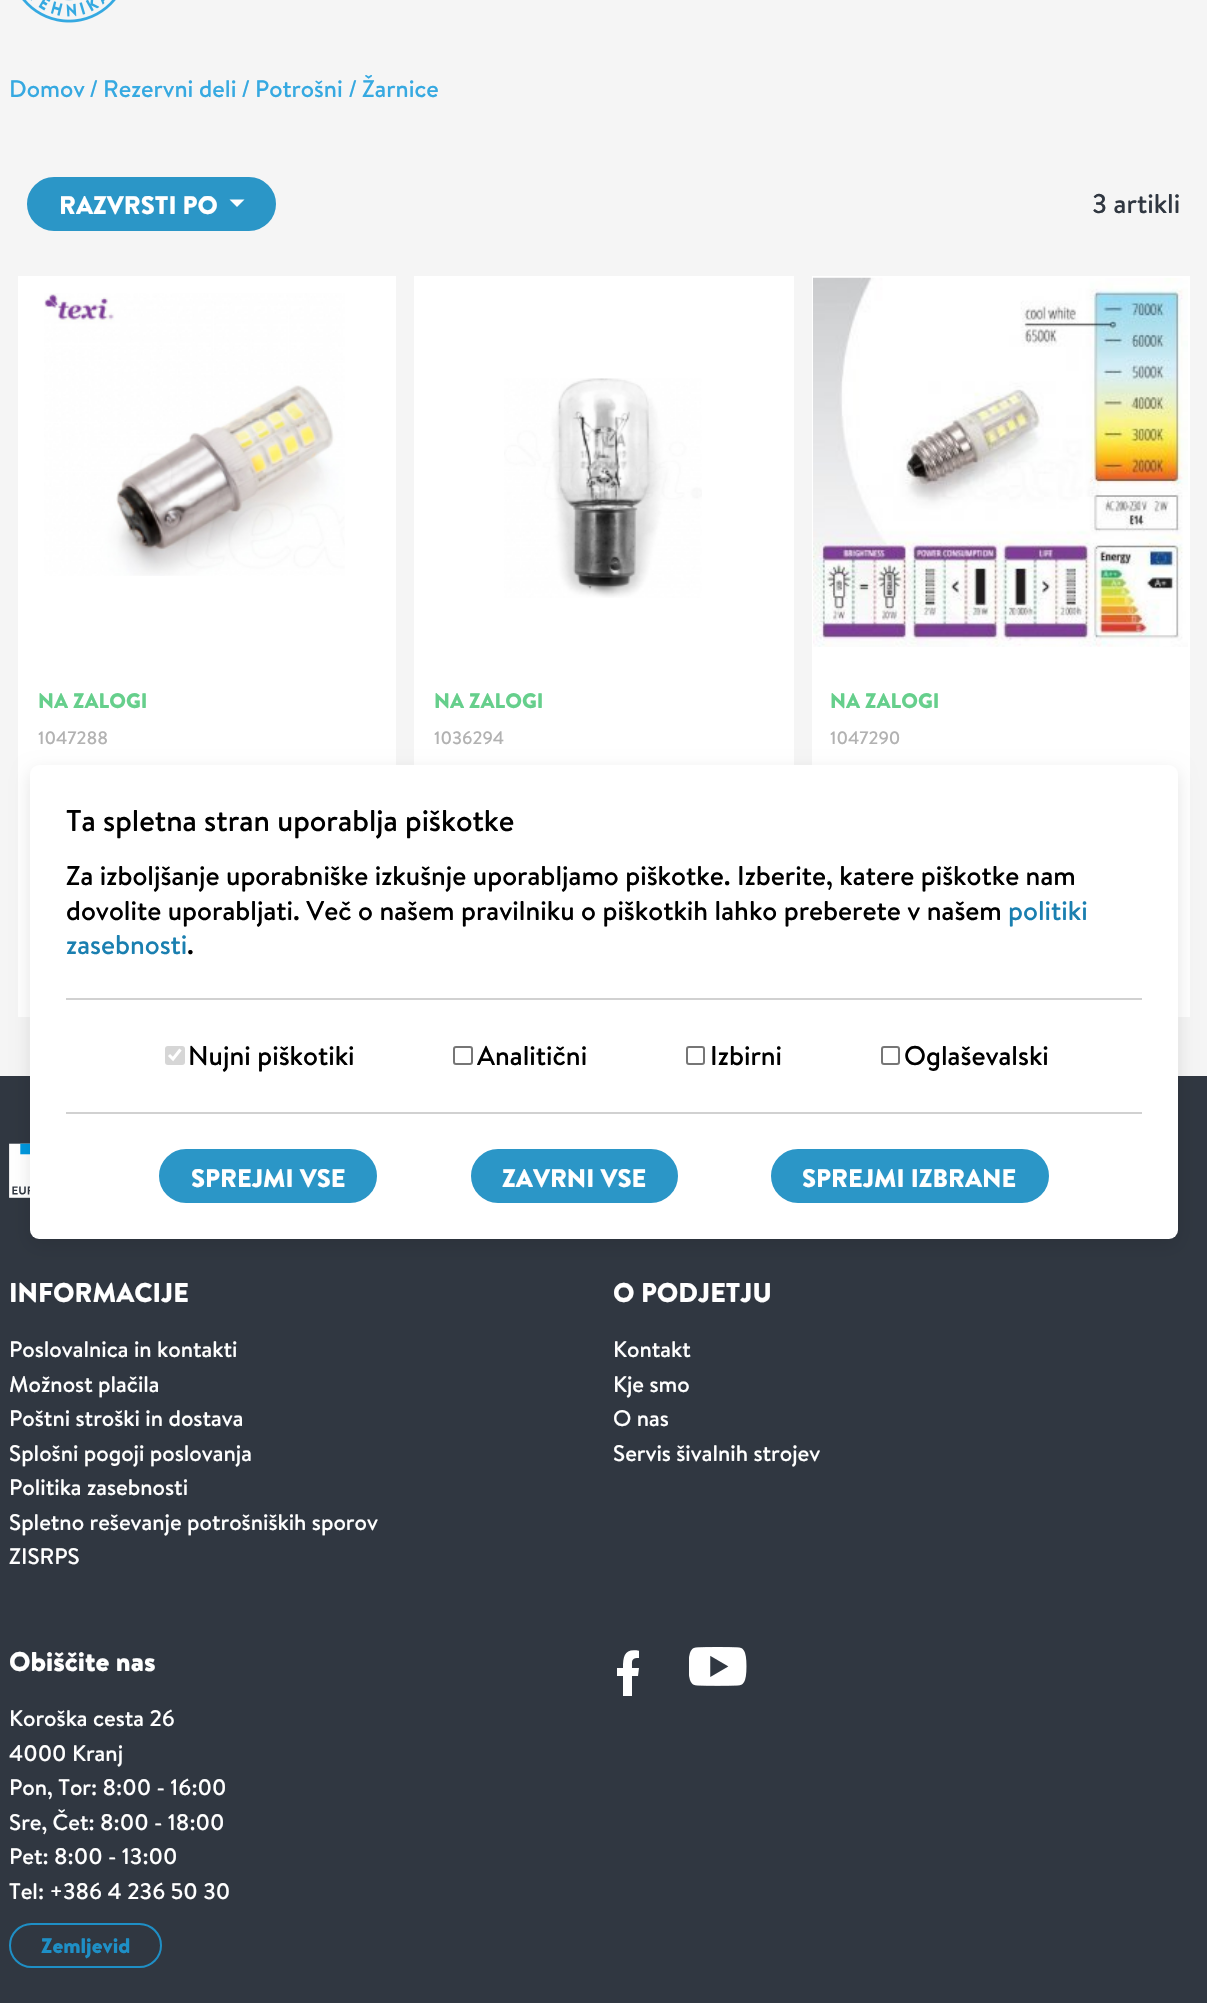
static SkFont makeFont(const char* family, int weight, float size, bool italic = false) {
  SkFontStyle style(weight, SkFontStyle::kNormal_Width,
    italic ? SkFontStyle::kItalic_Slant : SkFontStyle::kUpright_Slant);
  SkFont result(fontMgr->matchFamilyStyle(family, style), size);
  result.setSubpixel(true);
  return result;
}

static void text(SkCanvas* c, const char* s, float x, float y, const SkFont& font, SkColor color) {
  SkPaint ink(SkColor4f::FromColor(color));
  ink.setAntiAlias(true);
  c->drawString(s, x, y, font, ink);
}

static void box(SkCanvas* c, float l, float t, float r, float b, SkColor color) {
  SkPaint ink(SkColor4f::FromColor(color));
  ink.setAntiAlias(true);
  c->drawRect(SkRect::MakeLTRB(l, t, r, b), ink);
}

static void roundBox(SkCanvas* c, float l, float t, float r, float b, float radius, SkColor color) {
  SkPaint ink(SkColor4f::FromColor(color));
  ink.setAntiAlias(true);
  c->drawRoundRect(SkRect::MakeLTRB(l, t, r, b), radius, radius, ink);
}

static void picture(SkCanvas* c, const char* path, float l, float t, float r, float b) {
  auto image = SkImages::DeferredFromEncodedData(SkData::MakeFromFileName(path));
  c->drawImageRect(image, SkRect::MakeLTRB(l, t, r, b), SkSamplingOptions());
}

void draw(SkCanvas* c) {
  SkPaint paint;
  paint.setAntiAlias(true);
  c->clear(0xfff5f5f5);
  picture(c, "img_01.png", 22, 0, 116, 23);
  SkFont face1 = makeFont("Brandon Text", 500, 24);
  text(c, "Domov", 9, 97, face1, 0xff36a9e1);
  text(c, "/", 89, 97, face1, 0xff36a9e1);
  text(c, "Rezervni deli", 103, 97, face1, 0xff36a9e1);
  text(c, "/", 241, 97, face1, 0xff36a9e1);
  text(c, "Potrošni", 255, 97, face1, 0xff36a9e1);
  text(c, "/", 348, 97, face1, 0xff36a9e1);
  text(c, "Žarnice", 362, 97, face1, 0xff36a9e1);
  paint.setColor(0xff2b96c7);
  c->drawRoundRect(SkRect::MakeLTRB(28, 178, 275, 230), 26, 26, paint);
  paint.setStyle(SkPaint::kStroke_Style);
  paint.setStrokeWidth(2);
  c->drawRoundRect(SkRect::MakeLTRB(28, 178, 275, 230), 26, 26, paint);
  SkFont face2 = makeFont("Brandon Text", 900, 25.5f);
  text(c, "RAZVRSTI PO", 59, 214, face2, 0xffffffff);
  paint.setStyle(SkPaint::kFill_Style);
  paint.setColor(0xffffffff);
  c->drawPath(SkPathBuilder().moveTo(229.5f, 199.5f).lineTo(244.5f, 199.5f).lineTo(237, 207).close().detach(), paint);
  SkFont face3 = makeFont("Brandon Text", 500, 27);
  text(c, "3 artikli", 1092, 213, face3, 0xff303741);
  box(c, 18, 276, 396, 1017, 0xffffffff);
  picture(c, "img_02.png", 44, 293, 345, 576);
  SkFont face4 = makeFont("Brandon Text", 900, 21);
  text(c, "NA ZALOGI", 38, 708, face4, 0xff66cf8c);
  SkFont face5 = makeFont("Brandon Text", 500, 18);
  text(c, "1047288", 38, 744, face5, 0xffb2b2b2);
  box(c, 414, 276, 794, 765, 0xffffffff);
  picture(c, "img_03.png", 504, 378, 702, 598);
  text(c, "NA ZALOGI", 434, 708, face4, 0xff66cf8c);
  text(c, "1036294", 434, 744, face5, 0xffb2b2b2);
  box(c, 812, 276, 1190, 1017, 0xffffffff);
  picture(c, "img_04.png", 813, 277, 1188, 647);
  text(c, "NA ZALOGI", 830, 708, face4, 0xff66cf8c);
  text(c, "1047290", 830, 744, face5, 0xffb2b2b2);
  box(c, 0, 1076, 1207, 2003, 0xff303741);
  picture(c, "img_05.png", 9, 1143, 30, 1198);
  paint.setColor(0x1a000000);
  paint.setMaskFilter(SkMaskFilter::MakeBlur(kNormal_SkBlurStyle, 9));
  c->drawRoundRect(SkRect::MakeLTRB(30, 771, 1178, 1245), 9, 9, paint);
  paint.setMaskFilter(nullptr);
  roundBox(c, 30, 765, 1178, 1239, 9, 0xffffffff);
  box(c, 66, 998, 1142, 1000, 0xffd1d1d1);
  SkFont face6 = makeFont("Brandon Text", 500, 30);
  text(c, "Ta spletna stran uporablja piškotke", 66, 831, face6, 0xff000000);
  text(c, "Za izboljšanje uporabniške izkušnje uporabljamo piškotke. Izberite, katere piškotke nam", 66, 885, face3, 0xff000000);
  text(c, "dovolite uporabljati. Več o našem pravilniku o piškotkih lahko preberete v našem", 66, 920, face3, 0xff000000);
  text(c, "politiki", 1008, 920, face3, 0xff1a7fb0);
  text(c, "zasebnosti", 66, 954, face3, 0xff1a7fb0);
  text(c, ".", 187, 954, face3, 0xff000000);
  box(c, 66, 1112, 1142, 1114, 0xffd1d1d1);
  roundBox(c, 165, 1046, 185, 1065, 3, 0xffd6d6d6);
  paint.setStyle(SkPaint::kStroke_Style);
  paint.setStrokeWidth(3.1f);
  paint.setColor(0xffffffff);
  c->drawPath(SkPathBuilder().moveTo(169, 1055).lineTo(173, 1059).lineTo(180.5f, 1049.5f).detach(), paint);
  text(c, "Nujni piškotiki", 188, 1065, face3, 0xff000000);
  paint.setStrokeWidth(2);
  paint.setColor(0xff767676);
  c->drawRoundRect(SkRect::MakeLTRB(454, 1047, 472, 1064), 2, 2, paint);
  text(c, "Analitični", 477, 1065, face3, 0xff000000);
  c->drawRoundRect(SkRect::MakeLTRB(687, 1047, 704, 1064), 2, 2, paint);
  text(c, "Izbirni", 710, 1065, face3, 0xff000000);
  c->drawRoundRect(SkRect::MakeLTRB(882, 1047, 899, 1064), 2, 2, paint);
  text(c, "Oglaševalski", 904, 1065, face3, 0xff000000);
  paint.setStyle(SkPaint::kFill_Style);
  paint.setColor(0xff2b96c7);
  c->drawRoundRect(SkRect::MakeLTRB(160, 1150, 376, 1202), 26, 26, paint);
  paint.setStyle(SkPaint::kStroke_Style);
  c->drawRoundRect(SkRect::MakeLTRB(160, 1150, 376, 1202), 26, 26, paint);
  text(c, "SPREJMI VSE", 191, 1187, face2, 0xffffffff);
  paint.setStyle(SkPaint::kFill_Style);
  c->drawRoundRect(SkRect::MakeLTRB(472, 1150, 677, 1202), 26, 26, paint);
  paint.setStyle(SkPaint::kStroke_Style);
  c->drawRoundRect(SkRect::MakeLTRB(472, 1150, 677, 1202), 26, 26, paint);
  text(c, "ZAVRNI VSE", 502, 1187, face2, 0xffffffff);
  paint.setStyle(SkPaint::kFill_Style);
  c->drawRoundRect(SkRect::MakeLTRB(772, 1150, 1048, 1202), 26, 26, paint);
  paint.setStyle(SkPaint::kStroke_Style);
  c->drawRoundRect(SkRect::MakeLTRB(772, 1150, 1048, 1202), 26, 26, paint);
  text(c, "SPREJMI IZBRANE", 802, 1187, face2, 0xffffffff);
  SkFont face7 = makeFont("Brandon Text", 900, 27);
  text(c, "INFORMACIJE", 9, 1302, face7, 0xffffffff);
  SkFont face8 = makeFont("Brandon Text", 500, 22.5f);
  text(c, "Poslovalnica in kontakti", 9, 1357, face8, 0xffffffff);
  text(c, "Možnost plačila", 9, 1392, face8, 0xffffffff);
  text(c, "Poštni stroški in dostava", 9, 1426, face8, 0xffffffff);
  text(c, "Splošni pogoji poslovanja", 9, 1461, face8, 0xffffffff);
  text(c, "Politika zasebnosti", 9, 1495, face8, 0xffffffff);
  text(c, "Spletno reševanje potrošniških sporov", 9, 1530, face8, 0xffffffff);
  text(c, "ZISRPS", 9, 1564, face8, 0xffffffff);
  text(c, "O PODJETJU", 613, 1302, face7, 0xffffffff);
  text(c, "Kontakt", 613, 1357, face8, 0xffffffff);
  text(c, "Kje smo", 613, 1392, face8, 0xffffffff);
  text(c, "O nas", 613, 1426, face8, 0xffffffff);
  text(c, "Servis šivalnih strojev", 613, 1461, face8, 0xffffffff);
  text(c, "Obiščite nas", 9, 1671, face7, 0xffffffff);
  text(c, "Koroška cesta 26", 9, 1726, face8, 0xffffffff);
  text(c, "4000 Kranj", 9, 1761, face8, 0xffffffff);
  text(c, "Pon, Tor: 8:00 - 16:00", 9, 1795, face8, 0xffffffff);
  text(c, "Sre, Čet: 8:00 - 18:00", 9, 1830, face8, 0xffffffff);
  text(c, "Pet: 8:00 - 13:00", 9, 1864, face8, 0xffffffff);
  text(c, "Tel: +386 4 236 50 30", 9, 1899, face8, 0xffffffff);
  paint.setColor(0xff1e8fc6);
  c->drawRoundRect(SkRect::MakeLTRB(10, 1924, 161, 1967), 21.5f, 21.5f, paint);
  text(c, "Zemljevid", 41, 1953, face4, 0xff1e8fc6);
  c->save();
  c->clipRect(SkRect::MakeLTRB(617, 1650, 639, 1697));
  paint.setStyle(SkPaint::kFill_Style);
  paint.setColor(0xffffffff);
  c->drawPath(SkPathBuilder().moveTo(638, 1676).lineTo(639, 1668).lineTo(632, 1668).cubicTo(632, 1660, 631, 1658, 640, 1658).lineTo(640, 1651).cubicTo(625, 1648, 623, 1655, 623, 1668).lineTo(616, 1668).lineTo(616, 1676).lineTo(623, 1676).lineTo(623, 1696).lineTo(632, 1696).lineTo(632, 1676).close().detach(), paint);
  c->restore();
  picture(c, "img_06.png", 689, 1647, 747, 1686);
}
